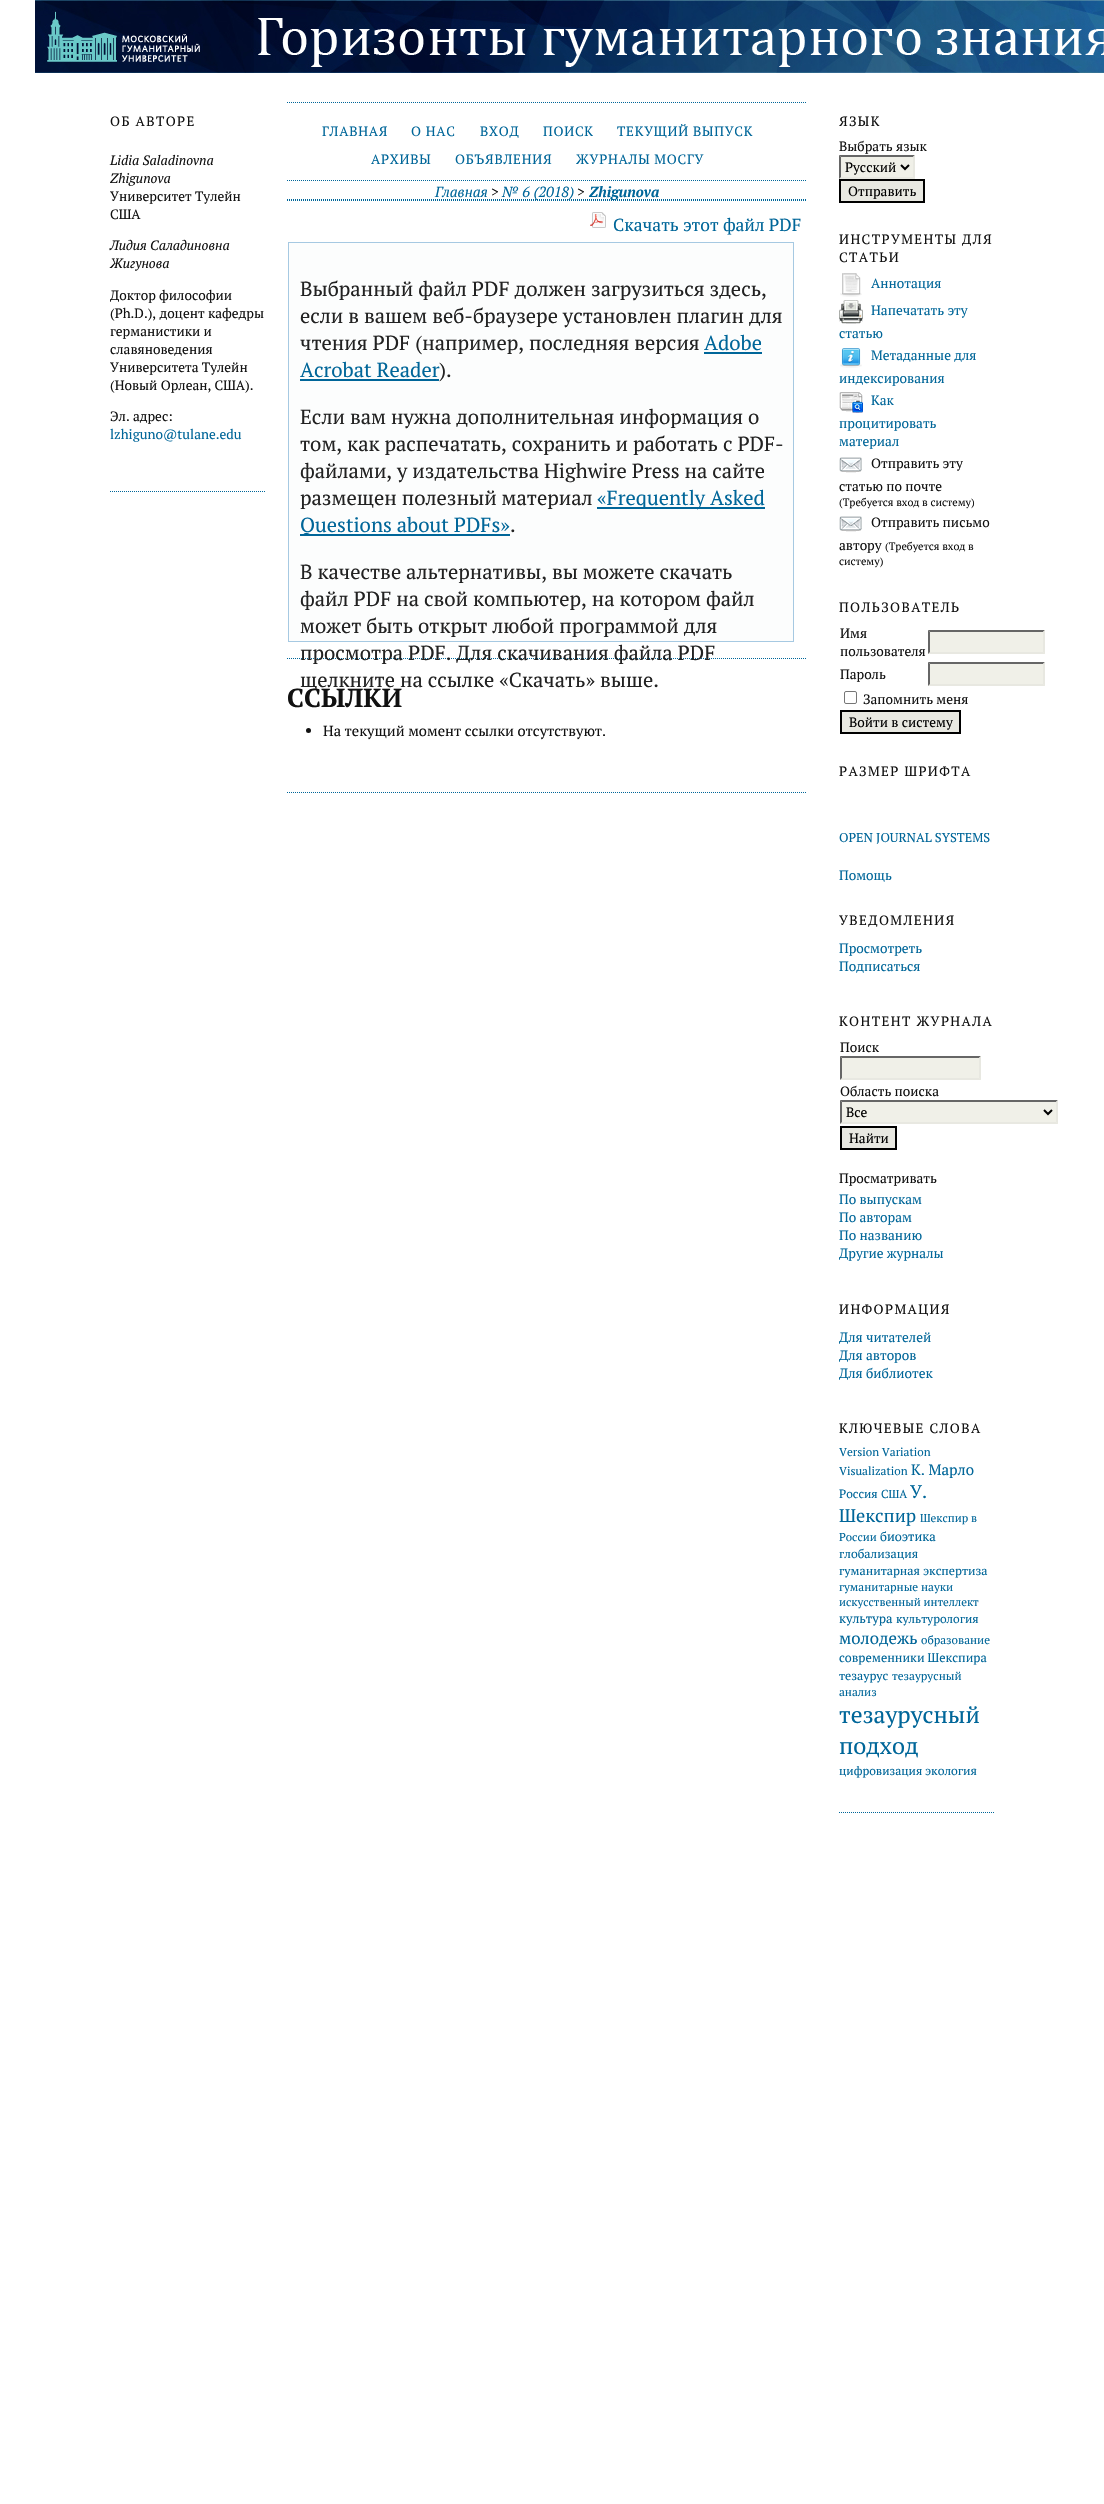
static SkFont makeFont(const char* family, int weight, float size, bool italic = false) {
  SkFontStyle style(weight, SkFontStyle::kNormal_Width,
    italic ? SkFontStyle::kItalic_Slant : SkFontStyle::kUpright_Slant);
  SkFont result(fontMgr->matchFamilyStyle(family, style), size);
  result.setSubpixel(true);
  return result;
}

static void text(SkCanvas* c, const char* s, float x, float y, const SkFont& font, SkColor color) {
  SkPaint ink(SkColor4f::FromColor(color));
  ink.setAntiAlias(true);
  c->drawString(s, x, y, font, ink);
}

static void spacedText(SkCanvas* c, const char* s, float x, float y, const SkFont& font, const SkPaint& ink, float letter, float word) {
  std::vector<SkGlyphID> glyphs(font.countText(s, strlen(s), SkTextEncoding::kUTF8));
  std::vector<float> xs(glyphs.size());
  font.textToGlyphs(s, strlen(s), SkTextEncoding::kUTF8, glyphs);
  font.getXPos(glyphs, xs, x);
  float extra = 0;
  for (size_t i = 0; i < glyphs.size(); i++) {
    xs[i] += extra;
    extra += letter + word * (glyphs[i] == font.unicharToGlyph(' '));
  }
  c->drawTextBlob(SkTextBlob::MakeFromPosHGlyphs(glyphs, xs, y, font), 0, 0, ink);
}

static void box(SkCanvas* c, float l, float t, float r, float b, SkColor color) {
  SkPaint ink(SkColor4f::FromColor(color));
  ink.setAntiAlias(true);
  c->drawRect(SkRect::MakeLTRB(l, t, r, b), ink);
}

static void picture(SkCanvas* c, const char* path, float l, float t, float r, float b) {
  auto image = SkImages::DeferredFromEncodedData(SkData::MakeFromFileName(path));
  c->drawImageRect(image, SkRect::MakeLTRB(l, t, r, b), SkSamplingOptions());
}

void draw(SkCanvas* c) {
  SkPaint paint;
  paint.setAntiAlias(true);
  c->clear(0xffffffff);
  picture(c, "img_01.png", 35, 0, 1104, 73);
  paint.setStyle(SkPaint::kStroke_Style);
  paint.setStrokeWidth(1);
  paint.setColor(0xff006699);
  paint.setPathEffect(SkDashPathEffect::Make({{1, 1}}, 0));
  c->drawPath(SkPathBuilder().moveTo(110, 491.5f).lineTo(265, 491.5f).detach(), paint);
  paint.setPathEffect(nullptr);
  SkFont face1 = makeFont("PT Serif", 400, 13.5f);
  paint.setStyle(SkPaint::kFill_Style);
  paint.setColor(0xff111111);
  spacedText(c, "ОБ АВТОРЕ", 110, 126, face1, paint, 1.4f, 0);
  SkFont face2 = makeFont("PT Serif", 400, 13.5f, true);
  text(c, "Lidia Saladinovna", 110, 165, face2, 0xff111111);
  text(c, "Zhigunova", 110, 183, face2, 0xff111111);
  text(c, "Университет Тулейн", 110, 201, face1, 0xff111111);
  text(c, "США", 110, 219, face1, 0xff111111);
  text(c, "Лидия Саладиновна", 110, 250, face2, 0xff111111);
  text(c, "Жигунова", 110, 268, face2, 0xff111111);
  text(c, "Доктор философии", 110, 300, face1, 0xff111111);
  text(c, "(Ph.D.), доцент кафедры", 110, 318, face1, 0xff111111);
  text(c, "германистики и", 110, 336, face1, 0xff111111);
  text(c, "славяноведения", 110, 354, face1, 0xff111111);
  text(c, "Университета Тулейн", 110, 372, face1, 0xff111111);
  text(c, "(Новый Орлеан, США).", 110, 390, face1, 0xff111111);
  text(c, "Эл. адрес:", 110, 421, face1, 0xff111111);
  text(c, "lzhiguno@tulane.edu", 110, 439, face1, 0xff006699);
  paint.setStyle(SkPaint::kStroke_Style);
  paint.setColor(0xff006699);
  paint.setPathEffect(SkDashPathEffect::Make({{1, 1}}, 0));
  c->drawPath(SkPathBuilder().moveTo(839, 1812.5f).lineTo(994, 1812.5f).detach(), paint);
  paint.setPathEffect(nullptr);
  paint.setStyle(SkPaint::kFill_Style);
  paint.setColor(0xff111111);
  spacedText(c, "ЯЗЫК", 839, 126, face1, paint, 1.4f, 0);
  text(c, "Выбрать язык", 839, 151, face1, 0xff111111);
  box(c, 839, 155, 915, 179, 0xfff0f0e8);
  paint.setColor(0xff666666);
  c->drawPath(SkPathBuilder().moveTo(839, 155).lineTo(915, 155).lineTo(913, 157).lineTo(841, 157).close().detach(), paint);
  paint.setColor(0xffe8e8e1);
  c->drawPath(SkPathBuilder().moveTo(915, 155).lineTo(915, 179).lineTo(913, 177).lineTo(913, 157).close().detach(), paint);
  c->drawPath(SkPathBuilder().moveTo(915, 179).lineTo(839, 179).lineTo(841, 177).lineTo(913, 177).close().detach(), paint);
  paint.setColor(0xff666666);
  c->drawPath(SkPathBuilder().moveTo(839, 179).lineTo(839, 155).lineTo(841, 157).lineTo(841, 177).close().detach(), paint);
  paint.setStyle(SkPaint::kStroke_Style);
  paint.setStrokeWidth(2);
  paint.setColor(0xff000000);
  c->drawPath(SkPathBuilder().moveTo(901, 165).lineTo(905, 169).lineTo(909, 165).detach(), paint);
  text(c, "Русский", 845, 172, face1, 0xff000000);
  paint.setStyle(SkPaint::kFill_Style);
  paint.setColor(0xffe8e8e1);
  c->drawRect(SkRect::MakeLTRB(840, 180, 924, 202), paint);
  paint.setStyle(SkPaint::kStroke_Style);
  paint.setColor(0xff000000);
  c->drawRect(SkRect::MakeLTRB(840, 180, 924, 202), paint);
  text(c, "Отправить", 848, 196, face1, 0xff000000);
  paint.setStyle(SkPaint::kFill_Style);
  paint.setColor(0xff111111);
  spacedText(c, "ИНСТРУМЕНТЫ ДЛЯ", 839, 244, face1, paint, 1.4f, 0);
  spacedText(c, "СТАТЬИ", 839, 262, face1, paint, 1.4f, 0);
  picture(c, "img_02.png", 840, 273, 862, 297);
  text(c, "Аннотация", 871, 288, face1, 0xff006699);
  picture(c, "img_03.png", 839, 300, 863, 324);
  text(c, "Напечатать эту", 871, 315, face1, 0xff006699);
  text(c, "статью", 839, 338, face1, 0xff006699);
  picture(c, "img_04.png", 840, 348, 862, 368);
  text(c, "Метаданные для", 871, 360, face1, 0xff006699);
  text(c, "индексирования", 839, 383, face1, 0xff006699);
  picture(c, "img_05.png", 839, 392, 863, 413);
  text(c, "Как", 871, 405, face1, 0xff006699);
  text(c, "процитировать", 839, 428, face1, 0xff006699);
  text(c, "материал", 839, 446, face1, 0xff006699);
  picture(c, "img_06.png", 839, 457, 862, 473);
  text(c, "Отправить эту", 871, 468, face1, 0xff111111);
  text(c, "статью по почте", 839, 491, face1, 0xff111111);
  SkFont face3 = makeFont("PT Serif", 400, 10.75f);
  text(c, "(Требуется вход в систему)", 839, 506, face3, 0xff111111);
  picture(c, "img_06.png", 839, 516, 862, 532);
  text(c, "Отправить письмо", 871, 527, face1, 0xff111111);
  text(c, "автору", 839, 550, face1, 0xff111111);
  text(c, "(Требуется вход в", 885, 550, face3, 0xff111111);
  text(c, "систему)", 839, 565, face3, 0xff111111);
  spacedText(c, "ПОЛЬЗОВАТЕЛЬ", 839, 612, face1, paint, 1.4f, 0);
  text(c, "Имя", 840, 638, face1, 0xff111111);
  text(c, "пользователя", 840, 656, face1, 0xff111111);
  box(c, 928, 630, 1045, 654, 0xfff0f0e8);
  paint.setColor(0xff666666);
  c->drawPath(SkPathBuilder().moveTo(928, 630).lineTo(1045, 630).lineTo(1043, 632).lineTo(930, 632).close().detach(), paint);
  paint.setColor(0xffe8e8e1);
  c->drawPath(SkPathBuilder().moveTo(1045, 630).lineTo(1045, 654).lineTo(1043, 652).lineTo(1043, 632).close().detach(), paint);
  c->drawPath(SkPathBuilder().moveTo(1045, 654).lineTo(928, 654).lineTo(930, 652).lineTo(1043, 652).close().detach(), paint);
  paint.setColor(0xff666666);
  c->drawPath(SkPathBuilder().moveTo(928, 654).lineTo(928, 630).lineTo(930, 632).lineTo(930, 652).close().detach(), paint);
  text(c, "Пароль", 840, 679, face1, 0xff111111);
  box(c, 928, 662, 1045, 686, 0xfff0f0e8);
  c->drawPath(SkPathBuilder().moveTo(928, 662).lineTo(1045, 662).lineTo(1043, 664).lineTo(930, 664).close().detach(), paint);
  paint.setColor(0xffe8e8e1);
  c->drawPath(SkPathBuilder().moveTo(1045, 662).lineTo(1045, 686).lineTo(1043, 684).lineTo(1043, 664).close().detach(), paint);
  c->drawPath(SkPathBuilder().moveTo(1045, 686).lineTo(928, 686).lineTo(930, 684).lineTo(1043, 684).close().detach(), paint);
  paint.setColor(0xff666666);
  c->drawPath(SkPathBuilder().moveTo(928, 686).lineTo(928, 662).lineTo(930, 664).lineTo(930, 684).close().detach(), paint);
  paint.setStyle(SkPaint::kStroke_Style);
  paint.setStrokeWidth(1);
  paint.setColor(0xff767676);
  c->drawRoundRect(SkRect::MakeLTRB(844.5f, 691.5f, 856.5f, 703.5f), 1.5f, 1.5f, paint);
  text(c, "Запомнить меня", 863, 704, face1, 0xff111111);
  paint.setStyle(SkPaint::kFill_Style);
  paint.setColor(0xffe8e8e1);
  c->drawRect(SkRect::MakeLTRB(841, 711, 960, 733), paint);
  paint.setStyle(SkPaint::kStroke_Style);
  paint.setStrokeWidth(2);
  paint.setColor(0xff000000);
  c->drawRect(SkRect::MakeLTRB(841, 711, 960, 733), paint);
  text(c, "Войти в систему", 849, 727, face1, 0xff000000);
  paint.setStyle(SkPaint::kFill_Style);
  paint.setColor(0xff111111);
  spacedText(c, "РАЗМЕР ШРИФТА", 839, 776, face1, paint, 1.4f, 0);
  SkFont face4 = makeFont("PT Serif", 400, 12.8f);
  text(c, "OPEN JOURNAL SYSTEMS", 839, 842, face4, 0xff006699);
  text(c, "Помощь", 839, 880, face1, 0xff006699);
  spacedText(c, "УВЕДОМЛЕНИЯ", 839, 925, face1, paint, 1.4f, 0);
  text(c, "Просмотреть", 839, 953, face1, 0xff006699);
  text(c, "Подписаться", 839, 971, face1, 0xff006699);
  spacedText(c, "КОНТЕНТ ЖУРНАЛА", 839, 1026, face1, paint, 1.4f, 0);
  text(c, "Поиск", 840, 1052, face1, 0xff111111);
  box(c, 840, 1056, 981, 1080, 0xfff0f0e8);
  paint.setColor(0xff666666);
  c->drawPath(SkPathBuilder().moveTo(840, 1056).lineTo(981, 1056).lineTo(979, 1058).lineTo(842, 1058).close().detach(), paint);
  paint.setColor(0xffe8e8e1);
  c->drawPath(SkPathBuilder().moveTo(981, 1056).lineTo(981, 1080).lineTo(979, 1078).lineTo(979, 1058).close().detach(), paint);
  c->drawPath(SkPathBuilder().moveTo(981, 1080).lineTo(840, 1080).lineTo(842, 1078).lineTo(979, 1078).close().detach(), paint);
  paint.setColor(0xff666666);
  c->drawPath(SkPathBuilder().moveTo(840, 1080).lineTo(840, 1056).lineTo(842, 1058).lineTo(842, 1078).close().detach(), paint);
  text(c, "Область поиска", 840, 1096, face1, 0xff111111);
  box(c, 840, 1100, 1058, 1124, 0xfff0f0e8);
  c->drawPath(SkPathBuilder().moveTo(840, 1100).lineTo(1058, 1100).lineTo(1056, 1102).lineTo(842, 1102).close().detach(), paint);
  paint.setColor(0xffe8e8e1);
  c->drawPath(SkPathBuilder().moveTo(1058, 1100).lineTo(1058, 1124).lineTo(1056, 1122).lineTo(1056, 1102).close().detach(), paint);
  c->drawPath(SkPathBuilder().moveTo(1058, 1124).lineTo(840, 1124).lineTo(842, 1122).lineTo(1056, 1122).close().detach(), paint);
  paint.setColor(0xff666666);
  c->drawPath(SkPathBuilder().moveTo(840, 1124).lineTo(840, 1100).lineTo(842, 1102).lineTo(842, 1122).close().detach(), paint);
  paint.setStyle(SkPaint::kStroke_Style);
  paint.setColor(0xff000000);
  c->drawPath(SkPathBuilder().moveTo(1044, 1110).lineTo(1048, 1114).lineTo(1052, 1110).detach(), paint);
  text(c, "Все", 846, 1117, face1, 0xff000000);
  paint.setStyle(SkPaint::kFill_Style);
  paint.setColor(0xffe8e8e1);
  c->drawRect(SkRect::MakeLTRB(841, 1127, 896, 1149), paint);
  paint.setStyle(SkPaint::kStroke_Style);
  paint.setColor(0xff000000);
  c->drawRect(SkRect::MakeLTRB(841, 1127, 896, 1149), paint);
  text(c, "Найти", 849, 1143, face1, 0xff000000);
  text(c, "Просматривать", 839, 1183, face1, 0xff111111);
  text(c, "По выпускам", 839, 1204, face1, 0xff006699);
  text(c, "По авторам", 839, 1222, face1, 0xff006699);
  text(c, "По названию", 839, 1240, face1, 0xff006699);
  text(c, "Другие журналы", 839, 1258, face1, 0xff006699);
  paint.setStyle(SkPaint::kFill_Style);
  paint.setColor(0xff111111);
  spacedText(c, "ИНФОРМАЦИЯ", 839, 1314, face1, paint, 1.4f, 0);
  text(c, "Для читателей", 839, 1342, face1, 0xff006699);
  text(c, "Для авторов", 839, 1360, face1, 0xff006699);
  text(c, "Для библиотек", 839, 1378, face1, 0xff006699);
  spacedText(c, "КЛЮЧЕВЫЕ СЛОВА", 839, 1433, face1, paint, 1.4f, 0);
  SkFont face5 = makeFont("PT Serif", 400, 11.6f);
  text(c, "Version Variation", 839, 1456, face5, 0xff006699);
  text(c, "Visualization", 839, 1475, face5, 0xff006699);
  SkFont face6 = makeFont("PT Serif", 400, 15);
  text(c, "К. Марло", 911, 1475, face6, 0xff006699);
  SkFont face7 = makeFont("PT Serif", 400, 12);
  text(c, "Россия", 839, 1498, face7, 0xff006699);
  text(c, "США", 881, 1498, face5, 0xff006699);
  SkFont face8 = makeFont("PT Serif", 400, 18.25f);
  text(c, "У.", 910, 1498, face8, 0xff006699);
  text(c, "Шекспир", 839, 1522, face8, 0xff006699);
  SkFont face9 = makeFont("PT Serif", 400, 11.4f);
  text(c, "Шекспир в", 920, 1522, face9, 0xff006699);
  text(c, "России", 839, 1541, face9, 0xff006699);
  text(c, "биоэтика", 880, 1541, face4, 0xff006699);
  SkFont face10 = makeFont("PT Serif", 400, 12.25f);
  text(c, "глобализация", 839, 1558, face10, 0xff006699);
  text(c, "гуманитарная экспертиза", 839, 1575, face10, 0xff006699);
  text(c, "гуманитарные науки", 839, 1591, face5, 0xff006699);
  text(c, "искусственный интеллект", 839, 1606, face9, 0xff006699);
  text(c, "культура", 839, 1623, face4, 0xff006699);
  text(c, "культурология", 896, 1623, face7, 0xff006699);
  SkFont face11 = makeFont("PT Serif", 400, 16.75f);
  text(c, "молодежь", 839, 1644, face11, 0xff006699);
  text(c, "образование", 921, 1644, face5, 0xff006699);
  SkFont face12 = makeFont("PT Serif", 400, 12.5f);
  text(c, "современники Шекспира", 839, 1662, face12, 0xff006699);
  text(c, "тезаурус", 839, 1680, face10, 0xff006699);
  text(c, "тезаурусный", 892, 1680, face5, 0xff006699);
  text(c, "анализ", 839, 1696, face5, 0xff006699);
  SkFont face13 = makeFont("PT Serif", 400, 23.5f);
  text(c, "тезаурусный", 839, 1723, face13, 0xff006699);
  text(c, "подход", 839, 1754, face13, 0xff006699);
  text(c, "цифровизация", 839, 1775, face7, 0xff006699);
  text(c, "экология", 925, 1775, face10, 0xff006699);
  paint.setStyle(SkPaint::kStroke_Style);
  paint.setStrokeWidth(1);
  paint.setColor(0xff006699);
  paint.setPathEffect(SkDashPathEffect::Make({{1, 1}}, 0));
  c->drawPath(SkPathBuilder().moveTo(287, 102.5f).lineTo(806, 102.5f).detach(), paint);
  paint.setPathEffect(nullptr);
  paint.setPathEffect(SkDashPathEffect::Make({{1, 1}}, 0));
  c->drawPath(SkPathBuilder().moveTo(287, 792.5f).lineTo(806, 792.5f).detach(), paint);
  paint.setPathEffect(nullptr);
  paint.setPathEffect(SkDashPathEffect::Make({{1, 1}}, 0));
  c->drawPath(SkPathBuilder().moveTo(287, 180.5f).lineTo(806, 180.5f).detach(), paint);
  paint.setPathEffect(nullptr);
  paint.setStyle(SkPaint::kFill_Style);
  spacedText(c, "ГЛАВНАЯ", 322, 136, face1, paint, 0.75f, 0);
  spacedText(c, "О НАС", 411, 136, face1, paint, 0.75f, 0);
  spacedText(c, "ВХОД", 480, 136, face1, paint, 0.75f, 0);
  spacedText(c, "ПОИСК", 543, 136, face1, paint, 0.75f, 0);
  spacedText(c, "ТЕКУЩИЙ ВЫПУСК", 617, 136, face1, paint, 0.75f, 0);
  spacedText(c, "АРХИВЫ", 371, 164, face1, paint, 0.75f, 0);
  spacedText(c, "ОБЪЯВЛЕНИЯ", 455, 164, face1, paint, 0.75f, 0);
  spacedText(c, "ЖУРНАЛЫ МОСГУ", 576, 164, face1, paint, 0.75f, 0);
  paint.setStyle(SkPaint::kStroke_Style);
  paint.setPathEffect(SkDashPathEffect::Make({{1, 1}}, 0));
  c->drawPath(SkPathBuilder().moveTo(287, 199.5f).lineTo(806, 199.5f).detach(), paint);
  paint.setPathEffect(nullptr);
  SkFont face14 = makeFont("PT Serif", 400, 14.6f, true);
  text(c, "Главная", 435, 197, face14, 0xff006699);
  text(c, ">", 491, 197, face14, 0xff111111);
  paint.setPathEffect(SkDashPathEffect::Make({{1, 1}}, 0));
  c->drawPath(SkPathBuilder().moveTo(287, 200.5f).lineTo(806, 200.5f).detach(), paint);
  paint.setPathEffect(nullptr);
  text(c, "№ 6 (2018)", 502, 197, face14, 0xff006699);
  text(c, ">", 577, 197, face14, 0xff111111);
  SkFont face15 = makeFont("PT Serif", 700, 14.6f, true);
  text(c, "Zhigunova", 589, 197, face15, 0xff006699);
  picture(c, "img_07.png", 590, 212, 606, 228);
  SkFont face16 = makeFont("PT Serif", 400, 17.5f);
  text(c, "Скачать этот файл PDF", 613, 231, face16, 0xff006699);
  paint.setStyle(SkPaint::kFill_Style);
  paint.setColor(0xfffcfdfd);
  c->drawRect(SkRect::MakeLTRB(288.5f, 242.5f, 793.5f, 641.5f), paint);
  paint.setStyle(SkPaint::kStroke_Style);
  paint.setColor(0xffa6c9e2);
  c->drawRect(SkRect::MakeLTRB(288.5f, 242.5f, 793.5f, 641.5f), paint);
  SkFont face17 = makeFont("PT Serif", 400, 20.4f);
  text(c, "Выбранный файл PDF должен загрузиться здесь,", 300, 296, face17, 0xff222222);
  text(c, "если в вашем веб-браузере установлен плагин для", 300, 323, face17, 0xff222222);
  text(c, "чтения PDF (например, последняя версия", 300, 350, face17, 0xff222222);
  text(c, "Adobe", 704, 350, face17, 0xff006699);
  box(c, 704, 352, 762, 354, 0xff006699);
  text(c, "Acrobat Reader", 300, 377, face17, 0xff006699);
  box(c, 300, 379, 439, 381, 0xff006699);
  text(c, ").", 439, 377, face17, 0xff222222);
  text(c, "Если вам нужна дополнительная информация о", 300, 424, face17, 0xff222222);
  text(c, "том, как распечатать, сохранить и работать с PDF-", 300, 451, face17, 0xff222222);
  text(c, "файлами, у издательства Highwire Press на сайте", 300, 478, face17, 0xff222222);
  text(c, "размещен полезный материал", 300, 505, face17, 0xff222222);
  box(c, 597, 507, 765, 509, 0xff006699);
  text(c, "«Frequently Asked", 597, 505, face17, 0xff006699);
  box(c, 300, 534, 510, 536, 0xff006699);
  text(c, "Questions about PDFs»", 300, 532, face17, 0xff006699);
  text(c, ".", 510, 532, face17, 0xff222222);
  text(c, "В качестве альтернативы, вы можете скачать", 300, 579, face17, 0xff222222);
  text(c, "файл PDF на свой компьютер, на котором файл", 300, 606, face17, 0xff222222);
  text(c, "может быть открыт любой программой для", 300, 633, face17, 0xff222222);
  paint.setColor(0xff006699);
  paint.setPathEffect(SkDashPathEffect::Make({{1, 1}}, 0));
  c->drawPath(SkPathBuilder().moveTo(287, 658.5f).lineTo(806, 658.5f).detach(), paint);
  paint.setPathEffect(nullptr);
  text(c, "просмотра PDF. Для скачивания файла PDF", 300, 660, face17, 0xff222222);
  text(c, "щелкните на ссылке «Скачать» выше.", 300, 687, face17, 0xff222222);
  SkFont face18 = makeFont("PT Serif", 700, 26);
  text(c, "ССЫЛКИ", 287, 707, face18, 0xff111111);
  paint.setStyle(SkPaint::kFill_Style);
  paint.setColor(0xff111111);
  c->drawCircle(308.5f, 730.5f, 2.5f, paint);
  SkFont face19 = makeFont("PT Serif", 400, 14.6f);
  text(c, "На текущий момент ссылки отсутствуют.", 323, 736, face19, 0xff111111);
}
